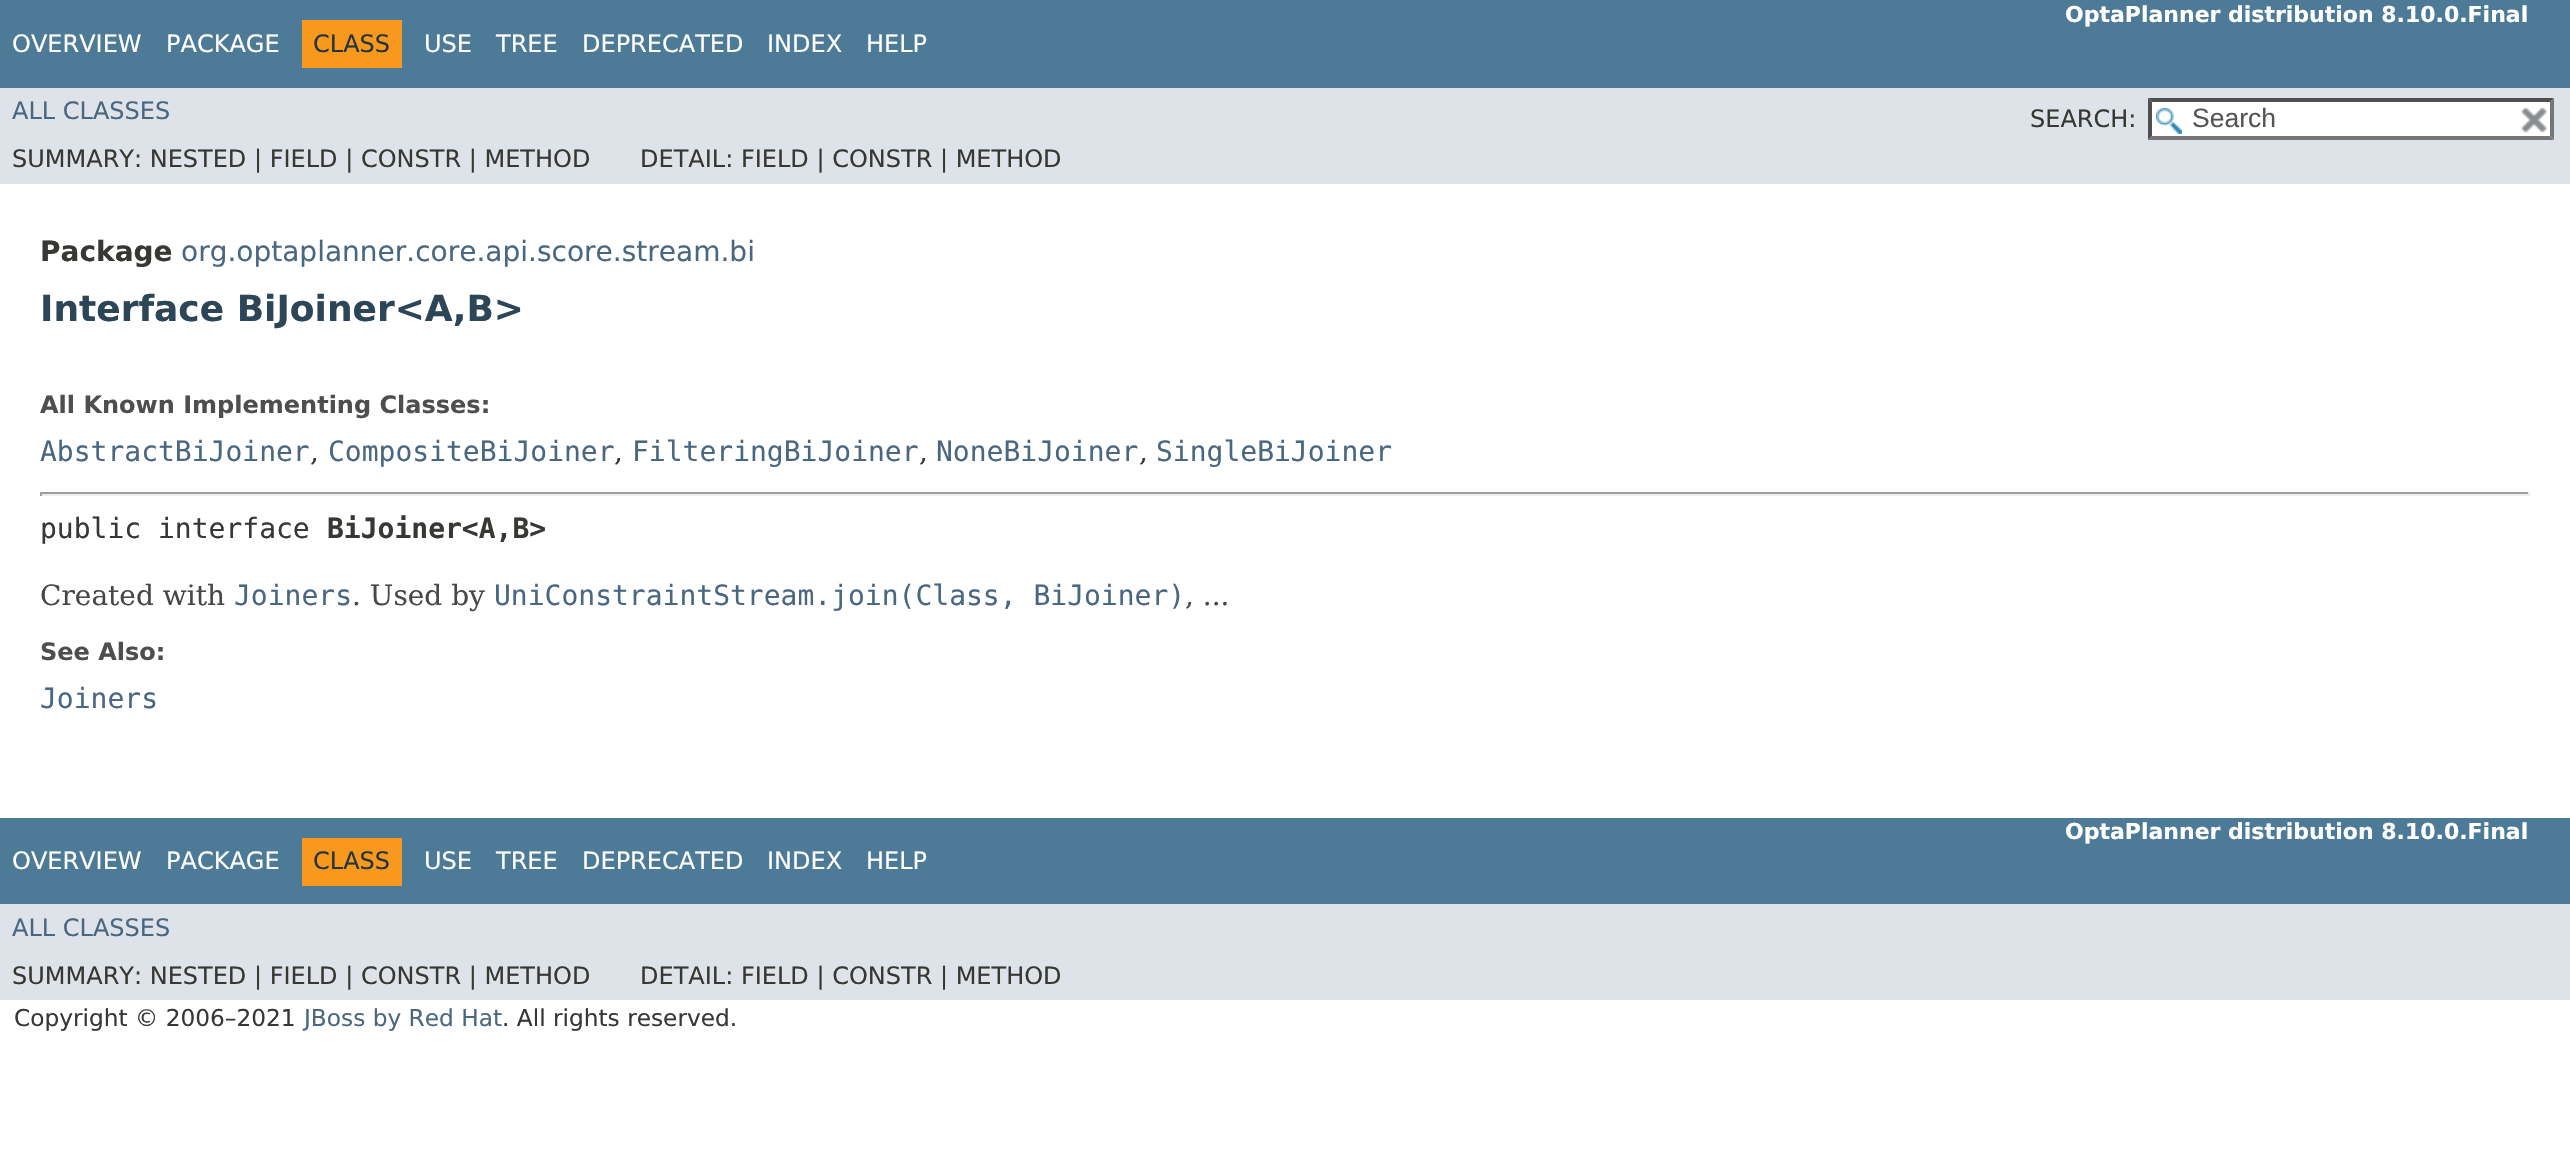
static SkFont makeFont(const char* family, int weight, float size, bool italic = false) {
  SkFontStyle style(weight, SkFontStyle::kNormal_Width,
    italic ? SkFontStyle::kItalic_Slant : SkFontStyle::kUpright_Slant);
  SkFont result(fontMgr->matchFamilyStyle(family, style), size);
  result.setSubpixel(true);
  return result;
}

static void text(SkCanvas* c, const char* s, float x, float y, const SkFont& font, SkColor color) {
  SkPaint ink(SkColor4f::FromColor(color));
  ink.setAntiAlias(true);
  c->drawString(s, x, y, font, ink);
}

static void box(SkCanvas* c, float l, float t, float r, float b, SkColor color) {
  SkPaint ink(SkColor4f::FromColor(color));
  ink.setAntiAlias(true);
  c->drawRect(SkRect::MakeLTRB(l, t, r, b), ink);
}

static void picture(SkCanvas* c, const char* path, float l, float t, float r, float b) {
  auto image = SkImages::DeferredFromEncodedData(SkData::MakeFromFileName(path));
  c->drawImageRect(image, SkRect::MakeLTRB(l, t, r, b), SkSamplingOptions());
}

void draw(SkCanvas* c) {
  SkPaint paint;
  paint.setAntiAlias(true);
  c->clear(0xffffffff);
  box(c, 0, 0, 2570, 88, 0xff4d7a97);
  SkFont face1 = makeFont("DejaVu Sans", 700, 22);
  text(c, "OptaPlanner distribution 8.10.0.Final", 2065, 22, face1, 0xffffffff);
  SkFont face2 = makeFont("DejaVu Sans", 400, 24);
  text(c, "OVERVIEW", 12, 52, face2, 0xffffffff);
  text(c, "PACKAGE", 166, 52, face2, 0xffffffff);
  box(c, 302, 20, 402, 68, 0xfff8981d);
  text(c, "CLASS", 313, 52, face2, 0xff253441);
  text(c, "USE", 424, 52, face2, 0xffffffff);
  text(c, "TREE", 496, 52, face2, 0xffffffff);
  text(c, "DEPRECATED", 582, 52, face2, 0xffffffff);
  text(c, "INDEX", 767, 52, face2, 0xffffffff);
  text(c, "HELP", 866, 52, face2, 0xffffffff);
  box(c, 0, 88, 2570, 184, 0xffdee3e9);
  text(c, "ALL CLASSES", 12, 119, face2, 0xff4a6782);
  text(c, "SEARCH:", 2030, 127, face2, 0xff353833);
  box(c, 2148, 98, 2554, 140, 0xffffffff);
  picture(c, "img_01.png", 2156, 108, 2182, 134);
  paint.setColor(0xff4f4f4f);
  c->drawPath(SkPathBuilder().moveTo(2148, 98).lineTo(2554, 98).lineTo(2550, 102).lineTo(2152, 102).close().detach(), paint);
  paint.setColor(0xff767676);
  c->drawPath(SkPathBuilder().moveTo(2554, 98).lineTo(2554, 140).lineTo(2550, 136).lineTo(2550, 102).close().detach(), paint);
  c->drawPath(SkPathBuilder().moveTo(2554, 140).lineTo(2148, 140).lineTo(2152, 136).lineTo(2550, 136).close().detach(), paint);
  paint.setColor(0xff4f4f4f);
  c->drawPath(SkPathBuilder().moveTo(2148, 140).lineTo(2148, 98).lineTo(2152, 102).lineTo(2152, 136).close().detach(), paint);
  SkFont face3 = makeFont("Liberation Sans", 400, 26.5f);
  text(c, "Search", 2192, 127, face3, 0xff545454);
  picture(c, "img_02.png", 2520, 107, 2547, 133);
  text(c, "SUMMARY: NESTED | FIELD | CONSTR | METHOD", 12, 167, face2, 0xff353833);
  text(c, "DETAIL: FIELD | CONSTR | METHOD", 640, 167, face2, 0xff353833);
  SkFont face4 = makeFont("DejaVu Sans", 700, 28);
  text(c, "Package", 40, 261, face4, 0xff353833);
  SkFont face5 = makeFont("DejaVu Sans", 400, 28);
  text(c, "org.optaplanner.core.api.score.stream.bi", 181, 261, face5, 0xff4a6782);
  SkFont face6 = makeFont("DejaVu Sans", 700, 36);
  text(c, "Interface BiJoiner<A,B>", 40, 321, face6, 0xff2c4557);
  SkFont face7 = makeFont("DejaVu Sans", 700, 24);
  text(c, "All Known Implementing Classes:", 40, 413, face7, 0xff4e4e4e);
  SkFont face8 = makeFont("DejaVu Sans Mono", 400, 28);
  text(c, "AbstractBiJoiner", 40, 461, face8, 0xff4a6782);
  SkFont face9 = makeFont("DejaVu Serif", 400, 28);
  text(c, ",", 310, 461, face9, 0xff353833);
  text(c, "CompositeBiJoiner", 328, 461, face8, 0xff4a6782);
  text(c, ",", 614, 461, face9, 0xff353833);
  text(c, "FilteringBiJoiner", 632, 461, face8, 0xff4a6782);
  text(c, ",", 919, 461, face9, 0xff353833);
  text(c, "NoneBiJoiner", 936, 461, face8, 0xff4a6782);
  text(c, ",", 1139, 461, face9, 0xff353833);
  text(c, "SingleBiJoiner", 1156, 461, face8, 0xff4a6782);
  box(c, 40, 492, 2530, 494, 0xff9f9f9f);
  box(c, 2528, 492, 2530, 496, 0xffeeeeee);
  box(c, 40, 494, 2530, 496, 0xffeeeeee);
  box(c, 40, 492, 42, 496, 0xff9f9f9f);
  text(c, "public interface", 40, 538, face8, 0xff353833);
  SkFont face10 = makeFont("DejaVu Sans Mono", 700, 28);
  text(c, "BiJoiner<A,B>", 327, 538, face10, 0xff353833);
  text(c, "Created with", 40, 605, face9, 0xff474747);
  text(c, "Joiners", 234, 605, face8, 0xff4a6782);
  text(c, ". Used by", 352, 605, face9, 0xff474747);
  text(c, "UniConstraintStream.join(Class, BiJoiner)", 494, 605, face8, 0xff4a6782);
  text(c, ", ...", 1185, 605, face9, 0xff474747);
  text(c, "See Also:", 40, 660, face7, 0xff4e4e4e);
  text(c, "Joiners", 40, 708, face8, 0xff4a6782);
  box(c, 0, 818, 2570, 904, 0xff4d7a97);
  text(c, "OptaPlanner distribution 8.10.0.Final", 2065, 839, face1, 0xffffffff);
  text(c, "OVERVIEW", 12, 869, face2, 0xffffffff);
  text(c, "PACKAGE", 166, 869, face2, 0xffffffff);
  box(c, 302, 838, 402, 886, 0xfff8981d);
  text(c, "CLASS", 313, 869, face2, 0xff253441);
  text(c, "USE", 424, 869, face2, 0xffffffff);
  text(c, "TREE", 496, 869, face2, 0xffffffff);
  text(c, "DEPRECATED", 582, 869, face2, 0xffffffff);
  text(c, "INDEX", 767, 869, face2, 0xffffffff);
  text(c, "HELP", 866, 869, face2, 0xffffffff);
  box(c, 0, 904, 2570, 1000, 0xffdee3e9);
  text(c, "ALL CLASSES", 12, 936, face2, 0xff4a6782);
  text(c, "SUMMARY: NESTED | FIELD | CONSTR | METHOD", 12, 984, face2, 0xff353833);
  text(c, "DETAIL: FIELD | CONSTR | METHOD", 640, 984, face2, 0xff353833);
  SkFont face11 = makeFont("DejaVu Sans", 400, 23.25f);
  text(c, "Copyright © 2006–2021", 14, 1026, face11, 0xff353833);
  text(c, "JBoss by Red Hat", 304, 1026, face11, 0xff4a6782);
  text(c, ". All rights reserved.", 502, 1026, face11, 0xff353833);
}
